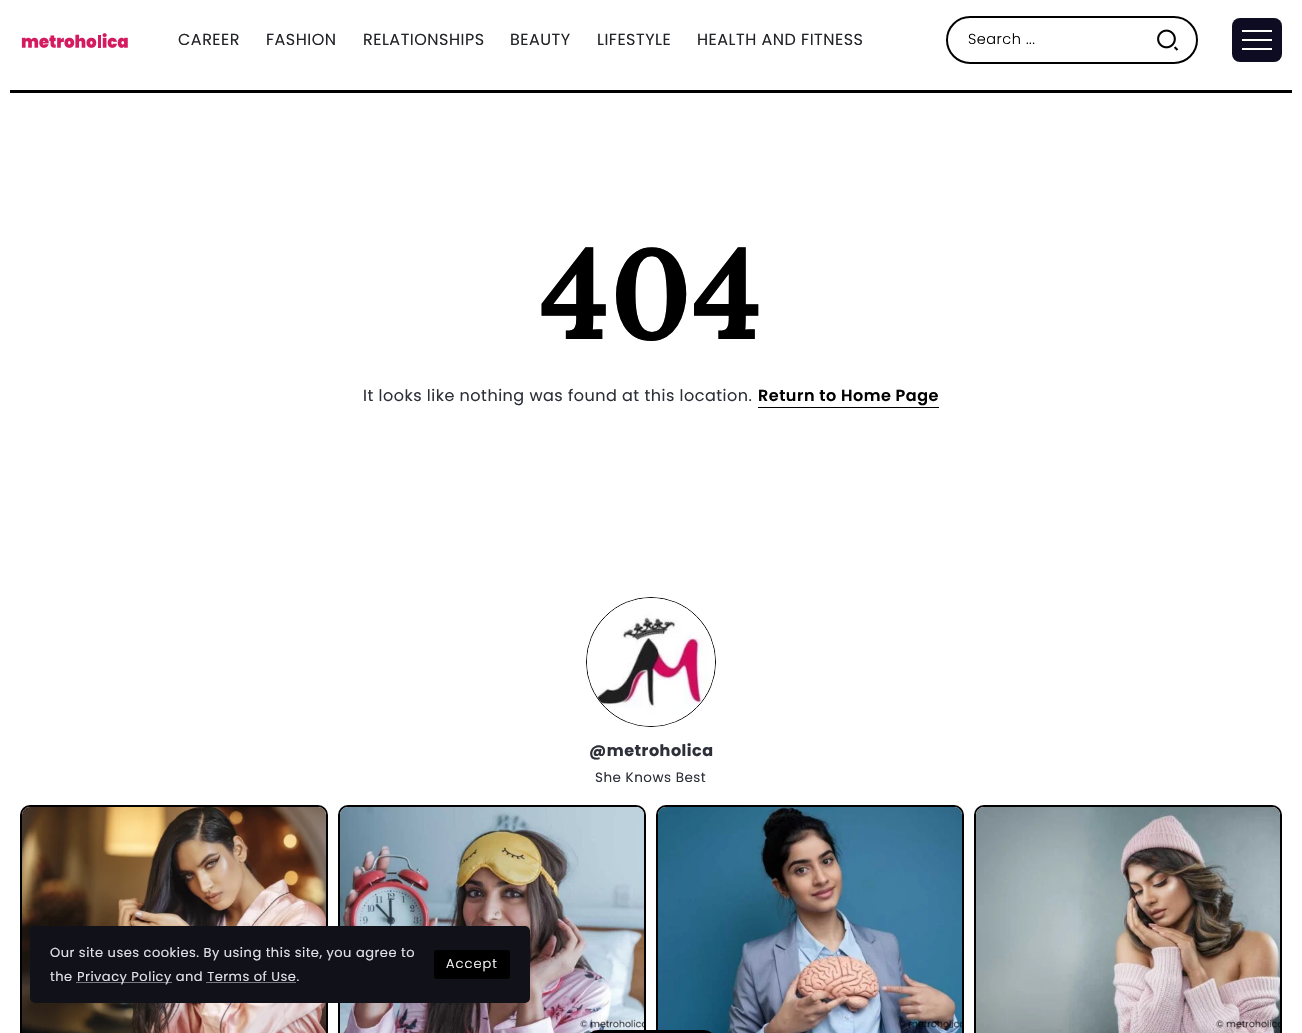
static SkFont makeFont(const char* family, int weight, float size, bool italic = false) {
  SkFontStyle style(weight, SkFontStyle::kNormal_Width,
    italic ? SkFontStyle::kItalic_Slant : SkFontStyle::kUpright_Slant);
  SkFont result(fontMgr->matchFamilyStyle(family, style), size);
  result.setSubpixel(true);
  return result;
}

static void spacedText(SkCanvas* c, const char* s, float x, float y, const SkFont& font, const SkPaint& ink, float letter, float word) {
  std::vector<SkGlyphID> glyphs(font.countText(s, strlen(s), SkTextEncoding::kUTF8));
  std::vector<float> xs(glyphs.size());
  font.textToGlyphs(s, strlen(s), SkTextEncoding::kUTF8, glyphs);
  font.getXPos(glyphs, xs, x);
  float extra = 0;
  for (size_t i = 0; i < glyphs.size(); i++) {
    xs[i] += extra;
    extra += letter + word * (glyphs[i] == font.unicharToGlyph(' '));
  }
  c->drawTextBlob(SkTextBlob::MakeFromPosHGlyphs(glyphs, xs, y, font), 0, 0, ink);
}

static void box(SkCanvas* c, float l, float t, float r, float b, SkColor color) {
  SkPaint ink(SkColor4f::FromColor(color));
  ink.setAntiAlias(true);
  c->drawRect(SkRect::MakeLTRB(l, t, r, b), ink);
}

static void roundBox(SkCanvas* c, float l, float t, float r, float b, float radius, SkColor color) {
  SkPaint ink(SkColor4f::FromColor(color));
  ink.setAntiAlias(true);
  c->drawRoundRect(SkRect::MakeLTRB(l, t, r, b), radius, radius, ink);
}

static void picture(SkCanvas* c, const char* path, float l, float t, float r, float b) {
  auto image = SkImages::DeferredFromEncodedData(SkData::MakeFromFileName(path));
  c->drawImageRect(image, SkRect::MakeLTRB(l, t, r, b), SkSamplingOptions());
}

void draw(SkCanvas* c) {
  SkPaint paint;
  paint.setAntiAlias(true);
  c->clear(0xffffffff);
  picture(c, "img_01.png", 21, 33, 128, 48);
  SkFont face1 = makeFont("Poppins", 400, 16);
  paint.setColor(0xff232428);
  spacedText(c, "CAREER", 178, 45, face1, paint, 0.5f, 0);
  spacedText(c, "FASHION", 266, 45, face1, paint, 0.5f, 0);
  spacedText(c, "RELATIONSHIPS", 363, 45, face1, paint, 0.5f, 0);
  spacedText(c, "BEAUTY", 510, 45, face1, paint, 0.5f, 0);
  spacedText(c, "LIFESTYLE", 597, 45, face1, paint, 0.5f, 0);
  spacedText(c, "HEALTH AND FITNESS", 697, 45, face1, paint, 0.5f, 0);
  paint.setStyle(SkPaint::kStroke_Style);
  paint.setStrokeWidth(2);
  paint.setColor(0xff000000);
  c->drawRoundRect(SkRect::MakeLTRB(947, 17, 1197, 63), 23, 23, paint);
  SkFont face2 = makeFont("Poppins", 300, 14.5f);
  paint.setStyle(SkPaint::kFill_Style);
  spacedText(c, "Search ...", 968, 44, face2, paint, 0.5f, 0);
  picture(c, "img_02.png", 1157, 29, 1179, 51);
  roundBox(c, 1232, 18, 1282, 62, 8, 0xff0d0c22);
  box(c, 1242, 30, 1272, 32, 0xffffffff);
  box(c, 1242, 39, 1272, 41, 0xffffffff);
  box(c, 1242, 48, 1272, 50, 0xffffffff);
  box(c, 10, 90, 1292, 93, 0xff000000);
  SkFont face3 = makeFont("Lora", 700, 128);
  spacedText(c, "404", 540, 339, face3, paint, 0.5f, 0);
  paint.setColor(0xff2e3039);
  spacedText(c, "It looks like nothing was found at this location.", 363, 401, face1, paint, 0.5f, 0);
  SkFont face4 = makeFont("Poppins", 600, 16);
  paint.setColor(0xff000000);
  spacedText(c, "Return to Home Page", 758, 401, face4, paint, 0.5f, 0);
  box(c, 758, 407, 939, 408, 0xff000000);
  paint.setStyle(SkPaint::kStroke_Style);
  paint.setStrokeWidth(1);
  c->drawCircle(651, 662, 64.5f, paint);
  picture(c, "img_03.png", 587, 598, 715, 726);
  SkFont face5 = makeFont("Poppins", 700, 16);
  paint.setStyle(SkPaint::kFill_Style);
  paint.setColor(0xff2e3039);
  spacedText(c, "@metroholica", 589, 756, face5, paint, 0.5f, 0);
  SkFont face6 = makeFont("Poppins", 400, 13.5f);
  spacedText(c, "She Knows Best", 595, 782, face6, paint, 0.5f, 0);
  paint.setStyle(SkPaint::kStroke_Style);
  paint.setStrokeWidth(2);
  paint.setColor(0xff000000);
  c->drawRoundRect(SkRect::MakeLTRB(21, 806, 327, 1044), 9, 9, paint);
  picture(c, "img_04.png", 22, 807, 326, 1033);
  c->drawRoundRect(SkRect::MakeLTRB(339, 806, 645, 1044), 9, 9, paint);
  picture(c, "img_05.png", 340, 807, 644, 1033);
  c->drawRoundRect(SkRect::MakeLTRB(657, 806, 963, 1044), 9, 9, paint);
  picture(c, "img_06.png", 658, 807, 962, 1033);
  roundBox(c, 586, 1030, 716, 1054, 20.5f, 0xff000000);
  c->drawRoundRect(SkRect::MakeLTRB(975, 806, 1281, 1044), 9, 9, paint);
  picture(c, "img_07.png", 976, 807, 1280, 1033);
  roundBox(c, 30, 926, 530, 1003, 5, 0xff101119);
  SkFont face7 = makeFont("Poppins", 400, 13);
  paint.setStyle(SkPaint::kFill_Style);
  paint.setColor(0xffdfe1e7);
  spacedText(c, "Our site uses cookies. By using this site, you agree to", 50, 957, face7, paint, 0.5f, 0);
  spacedText(c, "the", 50, 981, face7, paint, 0.5f, 0);
  paint.setStyle(SkPaint::kStroke_Style);
  paint.setStrokeWidth(1);
  paint.setPathEffect(SkDashPathEffect::Make({{1, 1}}, 0));
  c->drawPath(SkPathBuilder().moveTo(76.5f, 982.5f).lineTo(171.5f, 982.5f).detach(), paint);
  paint.setPathEffect(nullptr);
  paint.setStyle(SkPaint::kFill_Style);
  spacedText(c, "Privacy Policy and Terms of Use.", 77, 981, face7, paint, 0.5f, 0);
  paint.setStyle(SkPaint::kStroke_Style);
  paint.setPathEffect(SkDashPathEffect::Make({{1, 1}}, 0));
  c->drawPath(SkPathBuilder().moveTo(206.5f, 982.5f).lineTo(296, 982.5f).detach(), paint);
  paint.setPathEffect(nullptr);
  roundBox(c, 434, 950, 510, 979, 3, 0xff000000);
  SkFont face8 = makeFont("Poppins", 300, 13);
  paint.setStyle(SkPaint::kFill_Style);
  paint.setColor(0xffffffff);
  spacedText(c, "Accept", 446, 968, face8, paint, 1, 0);
}
